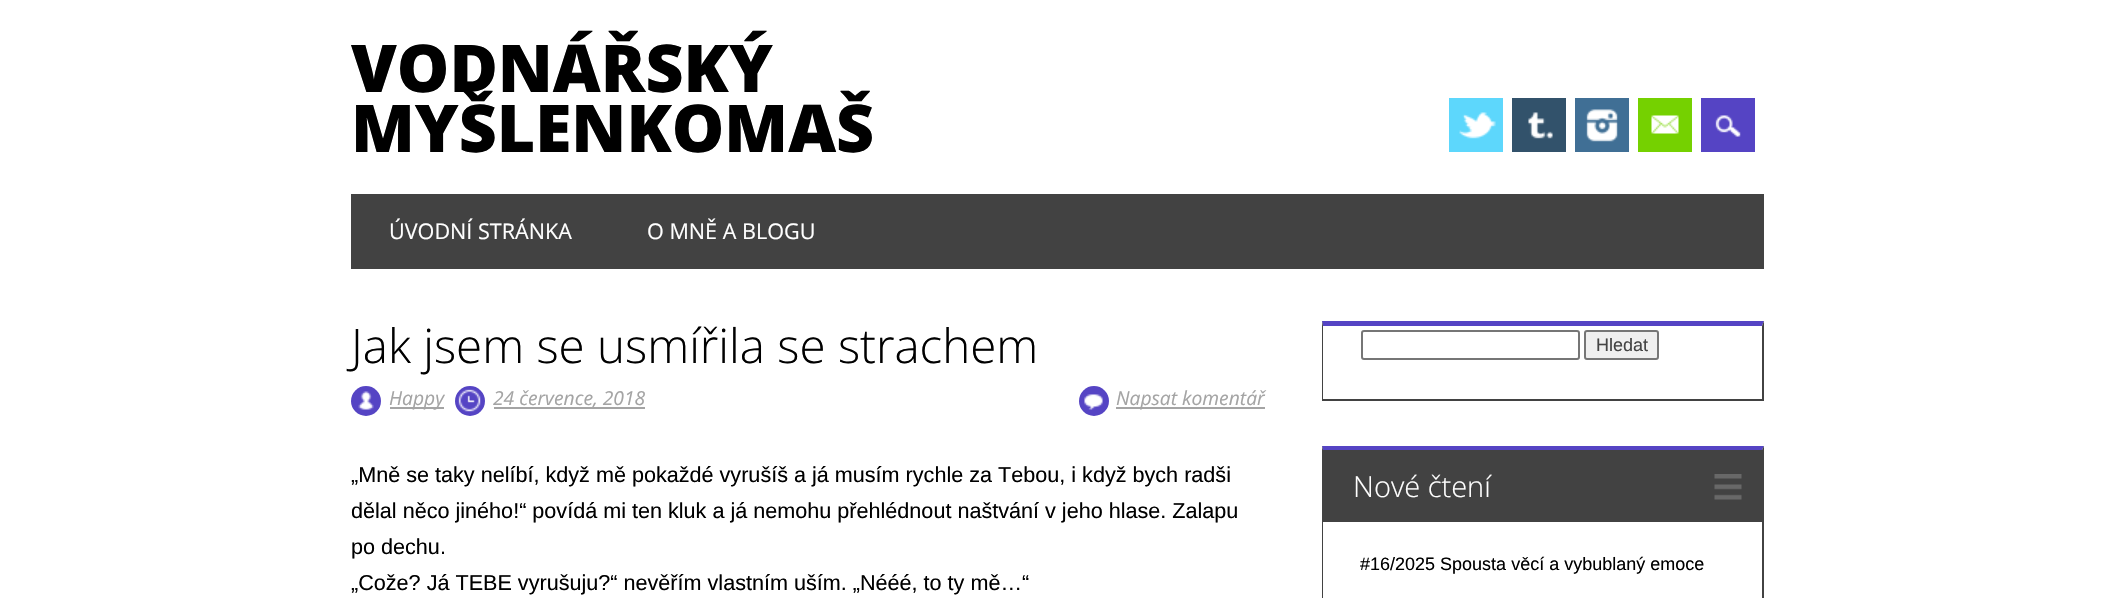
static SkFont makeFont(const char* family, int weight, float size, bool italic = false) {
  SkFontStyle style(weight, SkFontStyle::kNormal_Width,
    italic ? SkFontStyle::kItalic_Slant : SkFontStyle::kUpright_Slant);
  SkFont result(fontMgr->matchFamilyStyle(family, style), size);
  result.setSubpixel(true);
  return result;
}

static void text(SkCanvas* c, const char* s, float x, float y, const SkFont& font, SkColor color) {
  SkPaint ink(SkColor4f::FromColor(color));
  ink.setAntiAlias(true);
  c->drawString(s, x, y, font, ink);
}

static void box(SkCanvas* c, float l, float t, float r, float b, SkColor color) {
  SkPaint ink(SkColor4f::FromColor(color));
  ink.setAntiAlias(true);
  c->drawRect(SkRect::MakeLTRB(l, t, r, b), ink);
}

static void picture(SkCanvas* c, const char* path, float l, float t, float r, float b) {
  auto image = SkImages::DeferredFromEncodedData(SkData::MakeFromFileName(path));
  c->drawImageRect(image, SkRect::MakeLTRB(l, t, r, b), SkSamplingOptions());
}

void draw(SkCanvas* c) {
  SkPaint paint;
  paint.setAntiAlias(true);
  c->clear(0xffffffff);
  SkFont face1 = makeFont("Open Sans", 800, 66);
  text(c, "VODNÁŘSKÝ", 351, 92, face1, 0xff000000);
  text(c, "MYŠLENKOMAŠ", 351, 152, face1, 0xff000000);
  box(c, 1449, 98, 1503, 152, 0xff5dd7fc);
  picture(c, "img_01.png", 1459, 112, 1496, 139);
  box(c, 1512, 98, 1566, 152, 0xff32526b);
  picture(c, "img_02.png", 1528, 112, 1553, 139);
  box(c, 1575, 98, 1629, 152, 0xff406f95);
  picture(c, "img_03.png", 1586, 109, 1618, 142);
  box(c, 1638, 98, 1692, 152, 0xff75d100);
  picture(c, "img_04.png", 1651, 115, 1679, 134);
  box(c, 1701, 98, 1755, 152, 0xff5544c4);
  picture(c, "img_05.png", 1715, 115, 1741, 137);
  box(c, 351, 194, 1764, 269, 0xff424242);
  SkFont face2 = makeFont("Open Sans", 400, 21.6f);
  text(c, "ÚVODNÍ STRÁNKA", 389, 239, face2, 0xffffffff);
  text(c, "O MNĚ A BLOGU", 647, 239, face2, 0xffffffff);
  SkFont face3 = makeFont("Open Sans", 300, 47.5f);
  text(c, "Jak jsem se usmířila se strachem", 351, 363, face3, 0xff000000);
  paint.setColor(0xff5544c4);
  c->drawCircle(366, 401, 15, paint);
  picture(c, "img_06.png", 358, 391, 374, 410);
  box(c, 390, 407, 444, 409, 0xffa4a4a4);
  SkFont face4 = makeFont("Open Sans", 400, 19.25f, true);
  text(c, "Happy", 389, 405, face4, 0xffa4a4a4);
  c->drawCircle(470, 401, 15, paint);
  picture(c, "img_07.png", 458, 389, 481, 412);
  box(c, 494, 407, 645, 409, 0xffa4a4a4);
  text(c, "24 července, 2018", 493, 405, face4, 0xffa4a4a4);
  c->drawCircle(1094, 401, 15, paint);
  picture(c, "img_08.png", 1084, 394, 1103, 410);
  box(c, 1116, 407, 1265, 409, 0xffa4a4a4);
  text(c, "Napsat komentář", 1116, 405, face4, 0xffa4a4a4);
  SkFont face5 = makeFont("Liberation Sans", 400, 21.6f);
  text(c, "„Mně se taky nelíbí, když mě pokaždé vyrušíš a já musím rychle za Tebou, i když bych radši", 351, 482, face5, 0xff000000);
  text(c, "dělal něco jiného!“ povídá mi ten kluk a já nemohu přehlédnout naštvání v jeho hlase. Zalapu", 351, 518, face5, 0xff000000);
  text(c, "po dechu.", 351, 554, face5, 0xff000000);
  text(c, "„Cože? Já TEBE vyrušuju?“ nevěřím vlastním uším. „Nééé, to ty mě…“", 351, 590, face5, 0xff000000);
  c->drawPath(SkPathBuilder().moveTo(1322, 321).lineTo(1764, 321).lineTo(1762, 326).lineTo(1323, 326).close().detach(), paint);
  paint.setColor(0xff424242);
  c->drawPath(SkPathBuilder().moveTo(1764, 321).lineTo(1764, 400).lineTo(1762, 399).lineTo(1762, 326).close().detach(), paint);
  box(c, 1322, 399, 1764, 401, 0xff424242);
  c->drawPath(SkPathBuilder().moveTo(1322, 400).lineTo(1322, 321).lineTo(1323, 326).lineTo(1323, 399).close().detach(), paint);
  paint.setStyle(SkPaint::kStroke_Style);
  paint.setStrokeWidth(2);
  paint.setColor(0xff767676);
  c->drawRoundRect(SkRect::MakeLTRB(1362, 331, 1579, 359), 2, 2, paint);
  paint.setStyle(SkPaint::kFill_Style);
  paint.setColor(0xffefefef);
  c->drawRoundRect(SkRect::MakeLTRB(1585, 331, 1658, 359), 2, 2, paint);
  paint.setStyle(SkPaint::kStroke_Style);
  paint.setColor(0xff767676);
  c->drawRoundRect(SkRect::MakeLTRB(1585, 331, 1658, 359), 2, 2, paint);
  SkFont face6 = makeFont("Liberation Sans", 400, 18);
  text(c, "Hledat", 1596, 351, face6, 0xff444444);
  paint.setStyle(SkPaint::kFill_Style);
  paint.setColor(0xff5544c4);
  c->drawPath(SkPathBuilder().moveTo(1322, 446).lineTo(1764, 446).lineTo(1762, 450).lineTo(1323, 450).close().detach(), paint);
  paint.setColor(0xff424242);
  c->drawPath(SkPathBuilder().moveTo(1764, 446).lineTo(1764, 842).lineTo(1762, 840).lineTo(1762, 450).close().detach(), paint);
  c->drawPath(SkPathBuilder().moveTo(1322, 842).lineTo(1322, 446).lineTo(1323, 450).lineTo(1323, 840).close().detach(), paint);
  box(c, 1323, 450, 1762, 522, 0xff424242);
  picture(c, "img_09.png", 1714, 474, 1742, 500);
  SkFont face7 = makeFont("Open Sans", 300, 29);
  text(c, "Nové čtení", 1353, 497, face7, 0xffffffff);
  text(c, "#16/2025 Spousta věcí a vybublaný emoce", 1360, 570, face6, 0xff000000);
}
